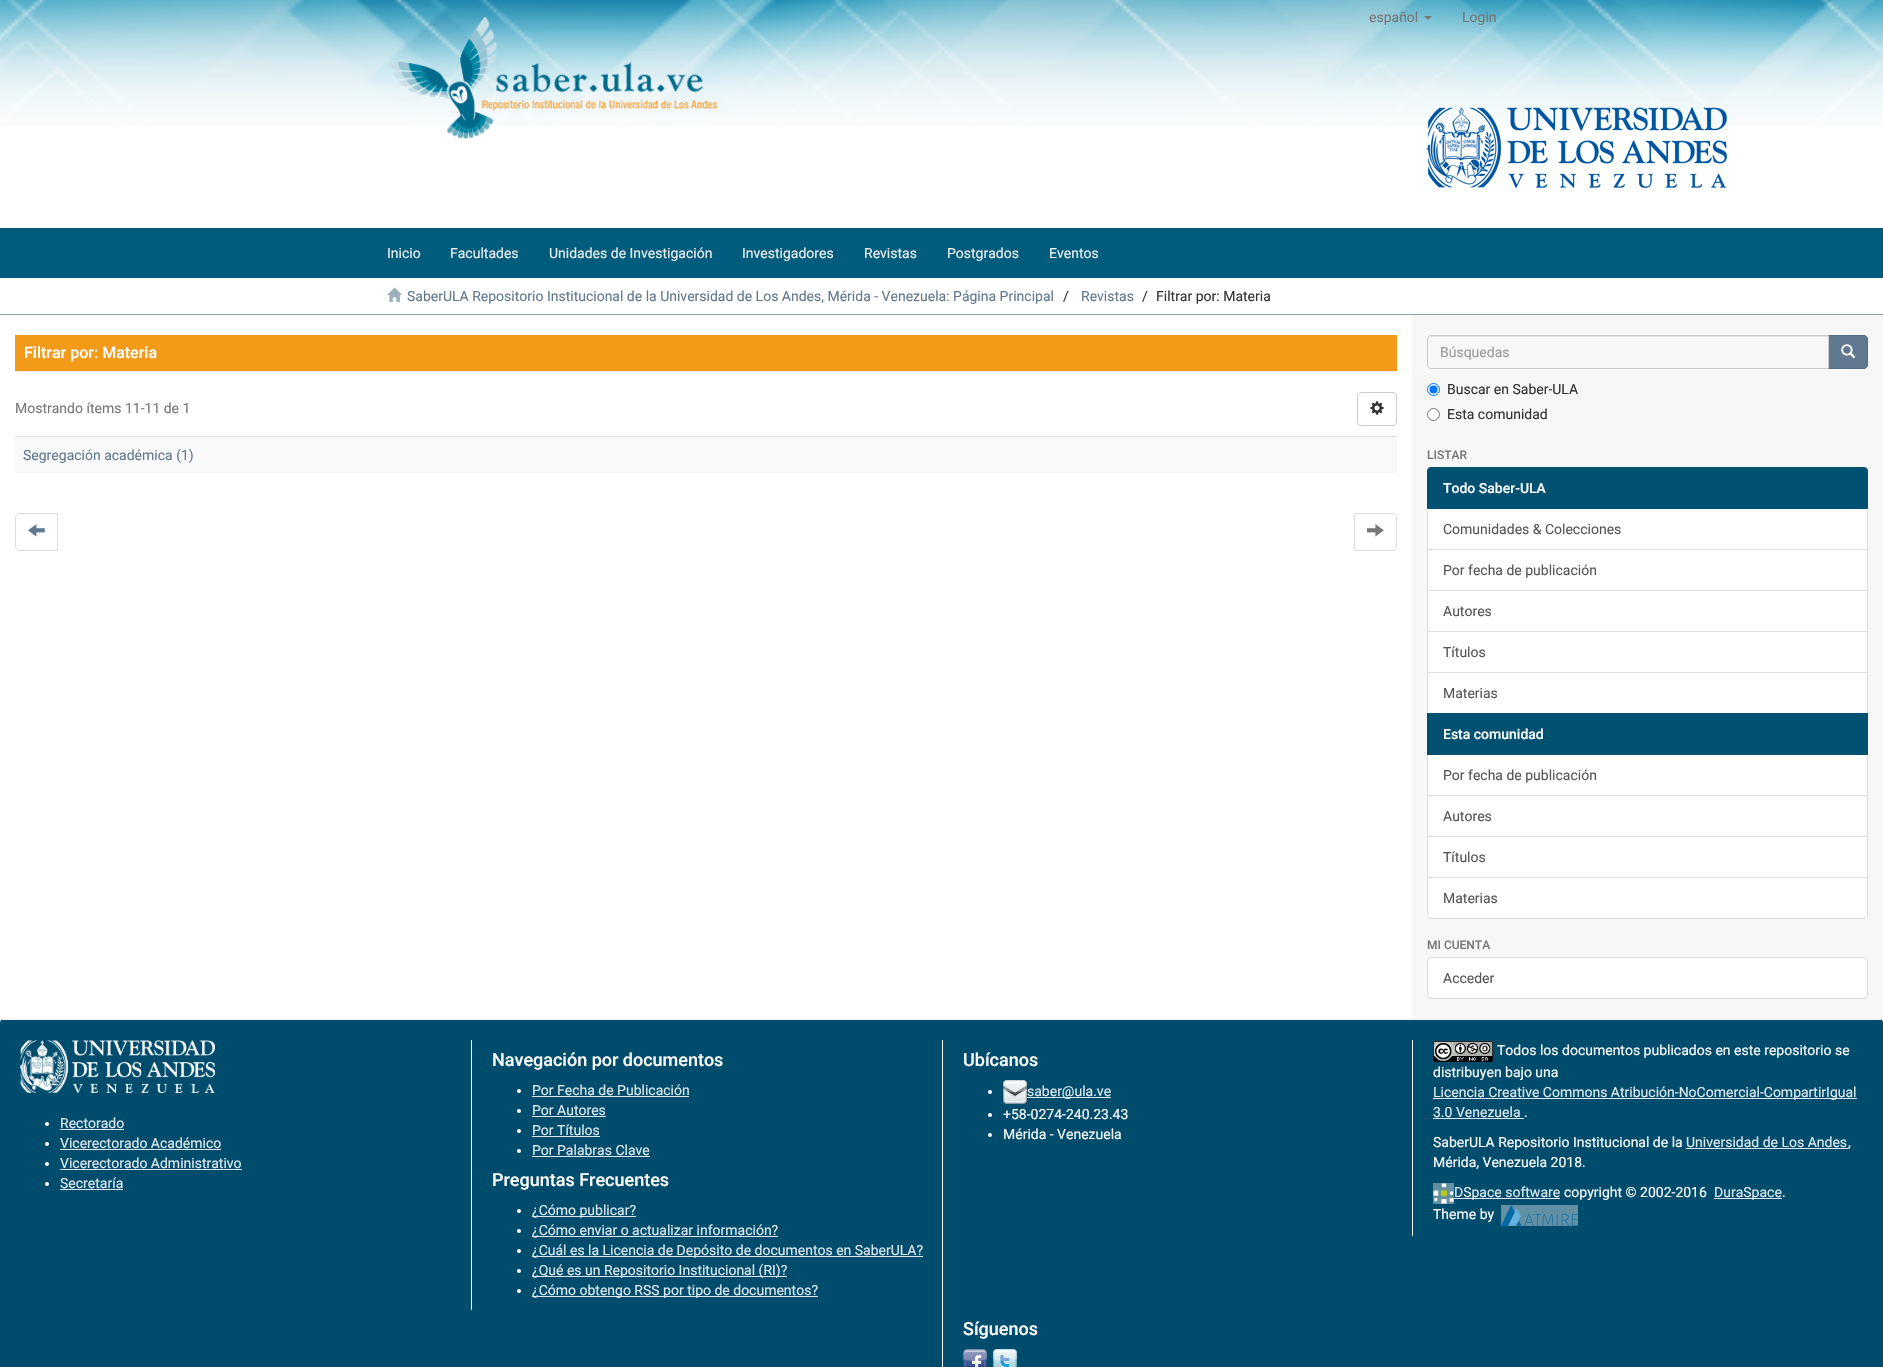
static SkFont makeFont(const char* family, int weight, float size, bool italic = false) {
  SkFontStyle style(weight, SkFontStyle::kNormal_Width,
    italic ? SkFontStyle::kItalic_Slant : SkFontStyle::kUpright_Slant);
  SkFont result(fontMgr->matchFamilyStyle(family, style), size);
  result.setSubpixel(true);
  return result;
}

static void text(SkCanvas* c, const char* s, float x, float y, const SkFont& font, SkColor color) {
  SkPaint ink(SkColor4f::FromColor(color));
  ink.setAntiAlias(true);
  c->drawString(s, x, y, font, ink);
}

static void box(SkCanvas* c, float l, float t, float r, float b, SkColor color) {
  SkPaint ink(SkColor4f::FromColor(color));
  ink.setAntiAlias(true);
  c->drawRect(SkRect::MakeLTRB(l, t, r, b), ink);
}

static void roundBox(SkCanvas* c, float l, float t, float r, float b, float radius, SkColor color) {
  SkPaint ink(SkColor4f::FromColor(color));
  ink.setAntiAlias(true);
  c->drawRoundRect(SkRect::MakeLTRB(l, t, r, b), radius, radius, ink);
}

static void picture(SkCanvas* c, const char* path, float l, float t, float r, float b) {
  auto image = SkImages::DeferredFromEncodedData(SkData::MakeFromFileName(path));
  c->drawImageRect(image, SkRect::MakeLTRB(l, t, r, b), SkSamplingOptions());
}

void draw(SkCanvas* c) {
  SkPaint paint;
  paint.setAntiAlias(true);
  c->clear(0xffffffff);
  picture(c, "img_01.png", 0, 0, 1883, 127);
  picture(c, "img_02.png", 389, 16, 718, 139);
  SkFont face1 = makeFont("Roboto", 400, 14);
  text(c, "español", 1369, 22, face1, 0xff777777);
  paint.setColor(0xff777777);
  c->drawPath(SkPathBuilder().moveTo(1424, 16).lineTo(1432, 16).lineTo(1428, 20).close().detach(), paint);
  text(c, "Login", 1462, 22, face1, 0xff777777);
  picture(c, "img_03.png", 1427, 107, 1727, 188);
  box(c, 0, 228, 1883, 278, 0xff005c7c);
  text(c, "Inicio", 387, 258, face1, 0xffeeeeee);
  text(c, "Facultades", 450, 258, face1, 0xffeeeeee);
  text(c, "Unidades de Investigación", 549, 258, face1, 0xffeeeeee);
  text(c, "Investigadores", 742, 258, face1, 0xffeeeeee);
  text(c, "Revistas", 864, 258, face1, 0xffeeeeee);
  text(c, "Postgrados", 947, 258, face1, 0xffeeeeee);
  text(c, "Eventos", 1049, 258, face1, 0xffeeeeee);
  box(c, 0, 314, 1883, 315, 0xff8b9eb2);
  picture(c, "img_04.png", 387, 287, 402, 302);
  text(c, "SaberULA Repositorio Institucional de la Universidad de Los Andes, Mérida - Venezuela: Página Principal", 407, 301, face1, 0xff607890);
  text(c, "/", 1063, 301, face1, 0xff333333);
  text(c, "Revistas", 1081, 301, face1, 0xff607890);
  text(c, "/", 1142, 301, face1, 0xff333333);
  text(c, "Filtrar por: Materia", 1156, 301, face1, 0xff333333);
  box(c, 1412, 315, 1883, 1019, 0xfff7f7f7);
  box(c, 15, 335, 1397, 371, 0xfff39a19);
  box(c, 15, 371, 1397, 372, 0xffeeeeee);
  SkFont face2 = makeFont("Roboto", 500, 16);
  text(c, "Filtrar por: Materia", 24, 358, face2, 0xffffffff);
  text(c, "Mostrando ítems 11-11 de 1", 15, 413, face1, 0xff777777);
  paint.setStyle(SkPaint::kStroke_Style);
  paint.setStrokeWidth(1);
  paint.setColor(0xffcccccc);
  c->drawRoundRect(SkRect::MakeLTRB(1357.5f, 392.5f, 1396.5f, 425.5f), 3.5f, 3.5f, paint);
  picture(c, "img_05.png", 1370, 401, 1384, 415);
  box(c, 15, 437, 1397, 473, 0xfff9f9f9);
  box(c, 15, 436, 1397, 437, 0xffdddddd);
  text(c, "Segregación académica (1)", 23, 460, face1, 0xff607890);
  paint.setColor(0xffdddddd);
  c->drawPath(SkPathBuilder().moveTo(19, 513.5f).lineTo(57.5f, 513.5f).lineTo(57.5f, 550.5f).lineTo(19, 550.5f).cubicTo(17, 550.5f, 15.5f, 549, 15.5f, 547).lineTo(15.5f, 517).cubicTo(15.5f, 515, 17, 513.5f, 19, 513.5f).close().detach(), paint);
  picture(c, "img_06.png", 28, 524, 45, 537);
  c->drawPath(SkPathBuilder().moveTo(1354.5f, 513.5f).lineTo(1393, 513.5f).cubicTo(1395, 513.5f, 1396.5f, 515, 1396.5f, 517).lineTo(1396.5f, 547).cubicTo(1396.5f, 549, 1395, 550.5f, 1393, 550.5f).lineTo(1354.5f, 550.5f).close().detach(), paint);
  picture(c, "img_07.png", 1367, 524, 1384, 537);
  paint.setStyle(SkPaint::kFill_Style);
  paint.setColor(0xffe4e4e4);
  c->drawPath(SkPathBuilder().moveTo(1431, 337).lineTo(1828, 337).lineTo(1828, 336).lineTo(1431, 336).cubicTo(1429, 336, 1428, 337, 1428, 339).lineTo(1428, 340).cubicTo(1428, 338, 1429, 337, 1431, 337).close().detach(), paint);
  paint.setColor(0xff607890);
  c->drawPath(SkPathBuilder().moveTo(1828.5f, 335.5f).lineTo(1864, 335.5f).cubicTo(1866, 335.5f, 1867.5f, 337, 1867.5f, 339).lineTo(1867.5f, 365).cubicTo(1867.5f, 367, 1866, 368.5f, 1864, 368.5f).lineTo(1828.5f, 368.5f).close().detach(), paint);
  paint.setStyle(SkPaint::kStroke_Style);
  paint.setColor(0xff566b81);
  c->drawPath(SkPathBuilder().moveTo(1828.5f, 335.5f).lineTo(1864, 335.5f).cubicTo(1866, 335.5f, 1867.5f, 337, 1867.5f, 339).lineTo(1867.5f, 365).cubicTo(1867.5f, 367, 1866, 368.5f, 1864, 368.5f).lineTo(1828.5f, 368.5f).close().detach(), paint);
  paint.setColor(0xffcccccc);
  c->drawPath(SkPathBuilder().moveTo(1431, 335.5f).lineTo(1828.5f, 335.5f).lineTo(1828.5f, 368.5f).lineTo(1431, 368.5f).cubicTo(1429, 368.5f, 1427.5f, 367, 1427.5f, 365).lineTo(1427.5f, 339).cubicTo(1427.5f, 337, 1429, 335.5f, 1431, 335.5f).close().detach(), paint);
  text(c, "Búsquedas", 1440, 357, face1, 0xff999999);
  picture(c, "img_08.png", 1841, 344, 1856, 359);
  paint.setStyle(SkPaint::kFill_Style);
  paint.setColor(0xffffffff);
  c->drawCircle(1433.5f, 389.5f, 6, paint);
  paint.setStyle(SkPaint::kStroke_Style);
  paint.setColor(0xff0075ff);
  c->drawCircle(1433.5f, 389.5f, 6, paint);
  paint.setStyle(SkPaint::kFill_Style);
  c->drawCircle(1433.5f, 389.5f, 4, paint);
  text(c, "Buscar en Saber-ULA", 1447, 394, face1, 0xff333333);
  paint.setColor(0xffffffff);
  c->drawCircle(1433.5f, 414.5f, 6, paint);
  paint.setStyle(SkPaint::kStroke_Style);
  paint.setColor(0xff767676);
  c->drawCircle(1433.5f, 414.5f, 6, paint);
  text(c, "Esta comunidad", 1447, 419, face1, 0xff333333);
  SkFont face3 = makeFont("Roboto", 500, 12);
  text(c, "LISTAR", 1427, 459, face3, 0xff777777);
  paint.setStyle(SkPaint::kFill_Style);
  paint.setColor(0xffffffff);
  c->drawRect(SkRect::MakeLTRB(1427.5f, 508.5f, 1867.5f, 549.5f), paint);
  paint.setStyle(SkPaint::kStroke_Style);
  paint.setColor(0xffdddddd);
  c->drawRect(SkRect::MakeLTRB(1427.5f, 508.5f, 1867.5f, 549.5f), paint);
  paint.setStyle(SkPaint::kFill_Style);
  paint.setColor(0xff005071);
  c->drawPath(SkPathBuilder().moveTo(1431, 467.5f).lineTo(1864, 467.5f).cubicTo(1866, 467.5f, 1867.5f, 469, 1867.5f, 471).lineTo(1867.5f, 508.5f).lineTo(1427.5f, 508.5f).lineTo(1427.5f, 471).cubicTo(1427.5f, 469, 1429, 467.5f, 1431, 467.5f).close().detach(), paint);
  paint.setStyle(SkPaint::kStroke_Style);
  c->drawPath(SkPathBuilder().moveTo(1431, 467.5f).lineTo(1864, 467.5f).cubicTo(1866, 467.5f, 1867.5f, 469, 1867.5f, 471).lineTo(1867.5f, 508.5f).lineTo(1427.5f, 508.5f).lineTo(1427.5f, 471).cubicTo(1427.5f, 469, 1429, 467.5f, 1431, 467.5f).close().detach(), paint);
  SkFont face4 = makeFont("Roboto", 500, 14);
  text(c, "Todo Saber-ULA", 1443, 493, face4, 0xffffffff);
  text(c, "Comunidades & Colecciones", 1443, 534, face1, 0xff555555);
  paint.setStyle(SkPaint::kFill_Style);
  paint.setColor(0xffffffff);
  c->drawRect(SkRect::MakeLTRB(1427.5f, 549.5f, 1867.5f, 590.5f), paint);
  paint.setStyle(SkPaint::kStroke_Style);
  paint.setColor(0xffdddddd);
  c->drawRect(SkRect::MakeLTRB(1427.5f, 549.5f, 1867.5f, 590.5f), paint);
  text(c, "Por fecha de publicación", 1443, 575, face1, 0xff555555);
  paint.setStyle(SkPaint::kFill_Style);
  paint.setColor(0xffffffff);
  c->drawRect(SkRect::MakeLTRB(1427.5f, 590.5f, 1867.5f, 631.5f), paint);
  paint.setStyle(SkPaint::kStroke_Style);
  paint.setColor(0xffdddddd);
  c->drawRect(SkRect::MakeLTRB(1427.5f, 590.5f, 1867.5f, 631.5f), paint);
  text(c, "Autores", 1443, 616, face1, 0xff555555);
  paint.setStyle(SkPaint::kFill_Style);
  paint.setColor(0xffffffff);
  c->drawRect(SkRect::MakeLTRB(1427.5f, 631.5f, 1867.5f, 672.5f), paint);
  paint.setStyle(SkPaint::kStroke_Style);
  paint.setColor(0xffdddddd);
  c->drawRect(SkRect::MakeLTRB(1427.5f, 631.5f, 1867.5f, 672.5f), paint);
  text(c, "Títulos", 1443, 657, face1, 0xff555555);
  paint.setStyle(SkPaint::kFill_Style);
  paint.setColor(0xffffffff);
  c->drawRect(SkRect::MakeLTRB(1427.5f, 672.5f, 1867.5f, 713.5f), paint);
  paint.setStyle(SkPaint::kStroke_Style);
  paint.setColor(0xffdddddd);
  c->drawRect(SkRect::MakeLTRB(1427.5f, 672.5f, 1867.5f, 713.5f), paint);
  text(c, "Materias", 1443, 698, face1, 0xff555555);
  paint.setStyle(SkPaint::kFill_Style);
  paint.setColor(0xffffffff);
  c->drawRect(SkRect::MakeLTRB(1427.5f, 754.5f, 1867.5f, 795.5f), paint);
  paint.setStyle(SkPaint::kStroke_Style);
  paint.setColor(0xffdddddd);
  c->drawRect(SkRect::MakeLTRB(1427.5f, 754.5f, 1867.5f, 795.5f), paint);
  box(c, 1427, 713, 1868, 755, 0xff005071);
  text(c, "Esta comunidad", 1443, 739, face4, 0xffffffff);
  text(c, "Por fecha de publicación", 1443, 780, face1, 0xff555555);
  paint.setStyle(SkPaint::kFill_Style);
  paint.setColor(0xffffffff);
  c->drawRect(SkRect::MakeLTRB(1427.5f, 795.5f, 1867.5f, 836.5f), paint);
  paint.setStyle(SkPaint::kStroke_Style);
  paint.setColor(0xffdddddd);
  c->drawRect(SkRect::MakeLTRB(1427.5f, 795.5f, 1867.5f, 836.5f), paint);
  text(c, "Autores", 1443, 821, face1, 0xff555555);
  paint.setStyle(SkPaint::kFill_Style);
  paint.setColor(0xffffffff);
  c->drawRect(SkRect::MakeLTRB(1427.5f, 836.5f, 1867.5f, 877.5f), paint);
  paint.setStyle(SkPaint::kStroke_Style);
  paint.setColor(0xffdddddd);
  c->drawRect(SkRect::MakeLTRB(1427.5f, 836.5f, 1867.5f, 877.5f), paint);
  text(c, "Títulos", 1443, 862, face1, 0xff555555);
  paint.setStyle(SkPaint::kFill_Style);
  paint.setColor(0xffffffff);
  c->drawPath(SkPathBuilder().moveTo(1427.5f, 877.5f).lineTo(1867.5f, 877.5f).lineTo(1867.5f, 915).cubicTo(1867.5f, 917, 1866, 918.5f, 1864, 918.5f).lineTo(1431, 918.5f).cubicTo(1429, 918.5f, 1427.5f, 917, 1427.5f, 915).close().detach(), paint);
  paint.setStyle(SkPaint::kStroke_Style);
  paint.setColor(0xffdddddd);
  c->drawPath(SkPathBuilder().moveTo(1427.5f, 877.5f).lineTo(1867.5f, 877.5f).lineTo(1867.5f, 915).cubicTo(1867.5f, 917, 1866, 918.5f, 1864, 918.5f).lineTo(1431, 918.5f).cubicTo(1429, 918.5f, 1427.5f, 917, 1427.5f, 915).close().detach(), paint);
  text(c, "Materias", 1443, 903, face1, 0xff555555);
  text(c, "MI CUENTA", 1427, 949, face3, 0xff777777);
  paint.setStyle(SkPaint::kFill_Style);
  paint.setColor(0xffffffff);
  c->drawRoundRect(SkRect::MakeLTRB(1427.5f, 957.5f, 1867.5f, 998.5f), 3.5f, 3.5f, paint);
  paint.setStyle(SkPaint::kStroke_Style);
  paint.setColor(0xffdddddd);
  c->drawRoundRect(SkRect::MakeLTRB(1427.5f, 957.5f, 1867.5f, 998.5f), 3.5f, 3.5f, paint);
  text(c, "Acceder", 1443, 983, face1, 0xff555555);
  roundBox(c, 0, 1019, 1883, 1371, 4, 0xff004c6d);
  box(c, 2, 1019, 1881, 1020, 0xffeeeeee);
  picture(c, "img_09.png", 20, 1040, 215, 1093);
  paint.setStyle(SkPaint::kFill_Style);
  paint.setColor(0xffffffff);
  c->drawCircle(47, 1124, 2, paint);
  text(c, "Rectorado", 60, 1128, face1, 0xffdee8ec);
  box(c, 60, 1129, 124, 1130, 0xffdee8ec);
  c->drawCircle(47, 1144, 2, paint);
  text(c, "Vicerectorado Académico", 60, 1148, face1, 0xffdee8ec);
  box(c, 60, 1149, 221, 1150, 0xffdee8ec);
  c->drawCircle(47, 1164, 2, paint);
  text(c, "Vicerectorado Administrativo", 60, 1168, face1, 0xffdee8ec);
  box(c, 60, 1169, 242, 1170, 0xffdee8ec);
  c->drawCircle(47, 1184, 2, paint);
  text(c, "Secretaría", 60, 1188, face1, 0xffdee8ec);
  box(c, 60, 1189, 123, 1190, 0xffdee8ec);
  box(c, 471, 1040, 472, 1310, 0xffffffff);
  SkFont face5 = makeFont("Roboto", 500, 18);
  text(c, "Navegación por documentos", 492, 1066, face5, 0xffffffff);
  c->drawCircle(519, 1091, 2, paint);
  text(c, "Por Fecha de Publicación", 532, 1095, face1, 0xffdee8ec);
  box(c, 532, 1096, 689, 1097, 0xffdee8ec);
  c->drawCircle(519, 1111, 2, paint);
  text(c, "Por Autores", 532, 1115, face1, 0xffdee8ec);
  box(c, 532, 1116, 606, 1117, 0xffdee8ec);
  c->drawCircle(519, 1131, 2, paint);
  text(c, "Por Títulos", 532, 1135, face1, 0xffdee8ec);
  box(c, 532, 1136, 600, 1137, 0xffdee8ec);
  c->drawCircle(519, 1151, 2, paint);
  text(c, "Por Palabras Clave", 532, 1155, face1, 0xffdee8ec);
  box(c, 532, 1156, 650, 1157, 0xffdee8ec);
  text(c, "Preguntas Frecuentes", 492, 1186, face5, 0xffffffff);
  c->drawCircle(519, 1211, 2, paint);
  box(c, 532, 1216, 636, 1217, 0xffdee8ec);
  text(c, "¿Cómo publicar?", 532, 1215, face1, 0xffdee8ec);
  c->drawCircle(519, 1231, 2, paint);
  box(c, 532, 1236, 778, 1237, 0xffdee8ec);
  text(c, "¿Cómo enviar o actualizar información?", 532, 1235, face1, 0xffdee8ec);
  c->drawCircle(519, 1251, 2, paint);
  box(c, 532, 1256, 923, 1257, 0xffdee8ec);
  text(c, "¿Cuál es la Licencia de Depósito de documentos en SaberULA?", 532, 1255, face1, 0xffdee8ec);
  c->drawCircle(519, 1271, 2, paint);
  box(c, 532, 1276, 787, 1277, 0xffdee8ec);
  text(c, "¿Qué es un Repositorio Institucional (RI)?", 532, 1275, face1, 0xffdee8ec);
  c->drawCircle(519, 1291, 2, paint);
  box(c, 532, 1296, 818, 1297, 0xffdee8ec);
  text(c, "¿Cómo obtengo RSS por tipo de documentos?", 532, 1295, face1, 0xffdee8ec);
  box(c, 942, 1040, 943, 1367, 0xffffffff);
  text(c, "Ubícanos", 963, 1066, face5, 0xffffffff);
  c->drawCircle(990, 1092, 2, paint);
  picture(c, "img_10.png", 1003, 1080, 1027, 1104);
  box(c, 1027, 1097, 1111, 1098, 0xffdee8ec);
  text(c, "saber@ula.ve", 1027, 1096, face1, 0xffdee8ec);
  c->drawCircle(990, 1115, 2, paint);
  text(c, "+58-0274-240.23.43", 1003, 1119, face1, 0xffffffff);
  c->drawCircle(990, 1135, 2, paint);
  text(c, "Mérida - Venezuela", 1003, 1139, face1, 0xffffffff);
  text(c, "Síguenos", 963, 1335, face5, 0xffffffff);
  picture(c, "img_11.png", 963, 1349, 987, 1367);
  picture(c, "img_12.png", 993, 1349, 1017, 1367);
  box(c, 1412, 1040, 1413, 1236, 0xffffffff);
  box(c, 1433, 1041, 1493, 1062, 0xff6190a4);
  picture(c, "img_13.png", 1433, 1041, 1493, 1062);
  text(c, "Todos los documentos publicados en este repositorio se", 1497, 1055, face1, 0xffffffff);
  text(c, "distribuyen bajo una", 1433, 1077, face1, 0xffffffff);
  box(c, 1433, 1098, 1857, 1099, 0xffdee8ec);
  text(c, "Licencia Creative Commons Atribución-NoComercial-CompartirIgual", 1433, 1097, face1, 0xffdee8ec);
  text(c, "3.0 Venezuela", 1433, 1117, face1, 0xffdee8ec);
  box(c, 1433, 1118, 1524, 1119, 0xffdee8ec);
  text(c, ".", 1524, 1117, face1, 0xffffffff);
  text(c, "SaberULA Repositorio Institucional de la", 1433, 1147, face1, 0xffffffff);
  text(c, "Universidad de Los Andes", 1686, 1147, face1, 0xffdee8ec);
  box(c, 1686, 1148, 1848, 1149, 0xffdee8ec);
  text(c, ",", 1848, 1147, face1, 0xffffffff);
  text(c, "Mérida, Venezuela 2018.", 1433, 1167, face1, 0xffffffff);
  box(c, 1433, 1183, 1454, 1204, 0xff6190a4);
  picture(c, "img_14.png", 1433, 1183, 1454, 1204);
  box(c, 1454, 1198, 1560, 1199, 0xffdee8ec);
  text(c, "DSpace software", 1454, 1197, face1, 0xffdee8ec);
  text(c, "copyright © 2002-2016", 1564, 1197, face1, 0xffffffff);
  box(c, 1714, 1198, 1782, 1199, 0xffdee8ec);
  text(c, "DuraSpace", 1714, 1197, face1, 0xffdee8ec);
  text(c, ".", 1782, 1197, face1, 0xffffffff);
  box(c, 1501, 1205, 1578, 1226, 0xff6190a4);
  text(c, "Theme by", 1433, 1219, face1, 0xffffffff);
  picture(c, "img_15.png", 1501, 1205, 1578, 1226);
}
